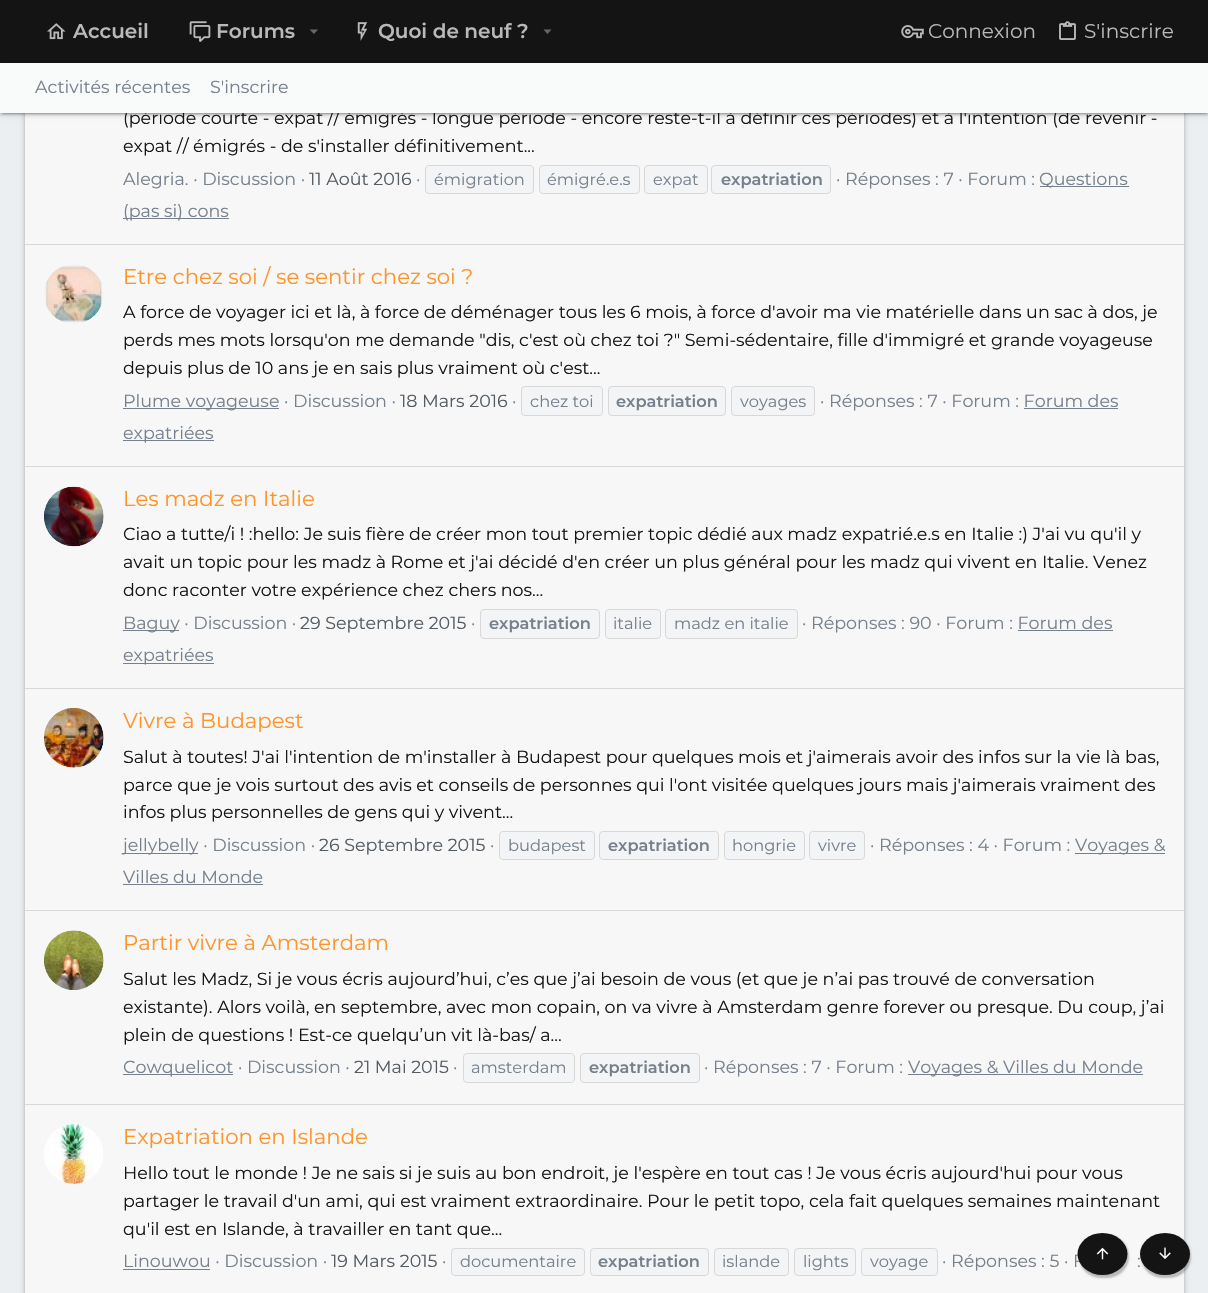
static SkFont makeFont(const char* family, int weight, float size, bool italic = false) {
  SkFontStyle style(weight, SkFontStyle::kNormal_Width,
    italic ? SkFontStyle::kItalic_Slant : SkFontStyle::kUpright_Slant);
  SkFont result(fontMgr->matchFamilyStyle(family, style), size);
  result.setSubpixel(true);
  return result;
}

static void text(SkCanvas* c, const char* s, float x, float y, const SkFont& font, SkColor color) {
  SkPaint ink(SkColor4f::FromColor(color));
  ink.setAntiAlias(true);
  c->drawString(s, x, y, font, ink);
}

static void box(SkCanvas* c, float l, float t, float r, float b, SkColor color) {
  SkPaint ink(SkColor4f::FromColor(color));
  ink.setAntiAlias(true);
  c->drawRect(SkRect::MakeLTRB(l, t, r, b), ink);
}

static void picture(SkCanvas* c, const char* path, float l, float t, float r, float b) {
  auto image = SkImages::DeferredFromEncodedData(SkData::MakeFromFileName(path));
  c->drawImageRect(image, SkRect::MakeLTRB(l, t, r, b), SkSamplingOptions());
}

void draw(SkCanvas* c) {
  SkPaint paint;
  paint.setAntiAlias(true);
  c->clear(0xffeceff1);
  paint.setColor(0x33000000);
  paint.setMaskFilter(SkMaskFilter::MakeBlur(kNormal_SkBlurStyle, 3));
  c->drawRoundRect(SkRect::MakeLTRB(25, -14, 1184, 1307), 5, 5, paint);
  paint.setMaskFilter(nullptr);
  paint.setColor(0x24000000);
  paint.setMaskFilter(SkMaskFilter::MakeBlur(kNormal_SkBlurStyle, 1));
  c->drawRoundRect(SkRect::MakeLTRB(25, -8, 1184, 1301), 5, 5, paint);
  paint.setMaskFilter(nullptr);
  box(c, 0, 0, 1208, 63, 0xff141414);
  picture(c, "img_01.png", 47, 23, 66, 40);
  SkFont face1 = makeFont("Montserrat", 600, 20);
  text(c, "Accueil", 73, 38, face1, 0xffb9b9b9);
  picture(c, "img_02.png", 189, 21, 211, 42);
  text(c, "Forums", 216, 38, face1, 0xffb9b9b9);
  paint.setColor(0xff676767);
  c->drawPath(SkPathBuilder().moveTo(309.5f, 29.5f).lineTo(314, 34).lineTo(318, 29.5f).close().detach(), paint);
  picture(c, "img_03.png", 357, 22, 368, 41);
  text(c, "Quoi de neuf ?", 378, 38, face1, 0xffb9b9b9);
  c->drawPath(SkPathBuilder().moveTo(543.5f, 29.5f).lineTo(547.5f, 34).lineTo(551.5f, 29.5f).close().detach(), paint);
  picture(c, "img_04.png", 901, 25, 924, 39);
  SkFont face2 = makeFont("Montserrat", 400, 20);
  text(c, "Connexion", 928, 38, face2, 0xffb9b9b9);
  picture(c, "img_05.png", 1059, 21, 1076, 40);
  text(c, "S'inscrire", 1084, 38, face2, 0xffb9b9b9);
  box(c, 25, 113, 1184, 1293, 0xfff7f7f7);
  paint.setColor(0x33000000);
  paint.setMaskFilter(SkMaskFilter::MakeBlur(kNormal_SkBlurStyle, 3));
  c->drawRect(SkRect::MakeLTRB(0, 64, 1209, 114), paint);
  paint.setMaskFilter(nullptr);
  paint.setColor(0x1f000000);
  paint.setMaskFilter(SkMaskFilter::MakeBlur(kNormal_SkBlurStyle, 0.5f));
  c->drawRect(SkRect::MakeLTRB(3, 69, 1206, 114), paint);
  paint.setMaskFilter(nullptr);
  paint.setColor(0x24000000);
  paint.setMaskFilter(SkMaskFilter::MakeBlur(kNormal_SkBlurStyle, 1));
  c->drawRect(SkRect::MakeLTRB(0, 65, 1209, 115), paint);
  paint.setMaskFilter(nullptr);
  SkFont face3 = makeFont("Montserrat", 400, 17.5f);
  text(c, "(période courte - expat // émigrés - longue période - encore reste-t-il à définir ces périodes) et à l'intention (de revenir -", 123, 124, face3, 0xff141618);
  box(c, 0, 63, 1208, 113, 0xfff9fafa);
  text(c, "Activités récentes", 35, 93, face3, 0xff76818d);
  text(c, "S'inscrire", 210, 93, face3, 0xff76818d);
  text(c, "expat // émigrés - de s'installer définitivement...", 123, 152, face3, 0xff141618);
  text(c, "Alegria. · Discussion ·", 123, 185, face3, 0xff76818d);
  text(c, "11 Août 2016", 309, 185, face3, 0xff535b63);
  text(c, "·", 416, 185, face3, 0xff76818d);
  paint.setColor(0xfff3f4f5);
  c->drawRoundRect(SkRect::MakeLTRB(425.5f, 165.5f, 533.5f, 193.5f), 3.5f, 3.5f, paint);
  paint.setStyle(SkPaint::kStroke_Style);
  paint.setStrokeWidth(1);
  paint.setColor(0xffd8d8d8);
  c->drawRoundRect(SkRect::MakeLTRB(425.5f, 165.5f, 533.5f, 193.5f), 3.5f, 3.5f, paint);
  SkFont face4 = makeFont("Montserrat", 400, 16.25f);
  text(c, "émigration", 434, 185, face4, 0xff76818d);
  paint.setStyle(SkPaint::kFill_Style);
  paint.setColor(0xfff3f4f5);
  c->drawRoundRect(SkRect::MakeLTRB(539.5f, 165.5f, 639.5f, 193.5f), 3.5f, 3.5f, paint);
  paint.setStyle(SkPaint::kStroke_Style);
  paint.setColor(0xffd8d8d8);
  c->drawRoundRect(SkRect::MakeLTRB(539.5f, 165.5f, 639.5f, 193.5f), 3.5f, 3.5f, paint);
  text(c, "émigré.e.s", 547, 185, face4, 0xff76818d);
  paint.setStyle(SkPaint::kFill_Style);
  paint.setColor(0xfff3f4f5);
  c->drawRoundRect(SkRect::MakeLTRB(644.5f, 165.5f, 707.5f, 193.5f), 3.5f, 3.5f, paint);
  paint.setStyle(SkPaint::kStroke_Style);
  paint.setColor(0xffd8d8d8);
  c->drawRoundRect(SkRect::MakeLTRB(644.5f, 165.5f, 707.5f, 193.5f), 3.5f, 3.5f, paint);
  text(c, "expat", 653, 185, face4, 0xff76818d);
  paint.setStyle(SkPaint::kFill_Style);
  paint.setColor(0xfff3f4f5);
  c->drawRoundRect(SkRect::MakeLTRB(711.5f, 165.5f, 830.5f, 193.5f), 3.5f, 3.5f, paint);
  paint.setStyle(SkPaint::kStroke_Style);
  paint.setColor(0xffd8d8d8);
  c->drawRoundRect(SkRect::MakeLTRB(711.5f, 165.5f, 830.5f, 193.5f), 3.5f, 3.5f, paint);
  SkFont face5 = makeFont("Montserrat", 600, 16.25f);
  text(c, "expatriation", 721, 185, face5, 0xff76818d);
  text(c, "· Réponses : 7 · Forum :", 836, 185, face3, 0xff76818d);
  box(c, 1040, 186, 1129, 187, 0xff76818d);
  text(c, "Questions", 1039, 185, face3, 0xff76818d);
  box(c, 123, 218, 229, 219, 0xff76818d);
  text(c, "(pas si) cons", 123, 217, face3, 0xff76818d);
  box(c, 25, 244, 1184, 245, 0xffd8d8d8);
  picture(c, "img_06.png", 44, 264, 104, 324);
  SkFont face6 = makeFont("Montserrat", 400, 21.25f);
  text(c, "Etre chez soi / se sentir chez soi ?", 123, 284, face6, 0xffff9429);
  text(c, "A force de voyager ici et là, à force de déménager tous les 6 mois, à force d'avoir ma vie matérielle dans un sac à dos, je", 123, 318, face3, 0xff141618);
  text(c, "perds mes mots lorsqu'on me demande \"dis, c'est où chez toi ?\" Semi-sédentaire, fille d'immigré et grande voyageuse", 123, 346, face3, 0xff141618);
  text(c, "depuis plus de 10 ans je en sais plus vraiment où c'est...", 123, 374, face3, 0xff141618);
  box(c, 123, 408, 279, 409, 0xff76818d);
  text(c, "Plume voyageuse · Discussion ·", 123, 407, face3, 0xff76818d);
  text(c, "18 Mars 2016", 400, 407, face3, 0xff535b63);
  text(c, "·", 512, 407, face3, 0xff76818d);
  paint.setStyle(SkPaint::kFill_Style);
  paint.setColor(0xfff3f4f5);
  c->drawRoundRect(SkRect::MakeLTRB(521.5f, 386.5f, 602.5f, 415.5f), 3.5f, 3.5f, paint);
  paint.setStyle(SkPaint::kStroke_Style);
  paint.setColor(0xffd8d8d8);
  c->drawRoundRect(SkRect::MakeLTRB(521.5f, 386.5f, 602.5f, 415.5f), 3.5f, 3.5f, paint);
  text(c, "chez toi", 530, 407, face4, 0xff76818d);
  paint.setStyle(SkPaint::kFill_Style);
  paint.setColor(0xfff3f4f5);
  c->drawRoundRect(SkRect::MakeLTRB(608.5f, 386.5f, 725.5f, 415.5f), 3.5f, 3.5f, paint);
  paint.setStyle(SkPaint::kStroke_Style);
  paint.setColor(0xffd8d8d8);
  c->drawRoundRect(SkRect::MakeLTRB(608.5f, 386.5f, 725.5f, 415.5f), 3.5f, 3.5f, paint);
  text(c, "expatriation", 616, 407, face5, 0xff76818d);
  paint.setStyle(SkPaint::kFill_Style);
  paint.setColor(0xfff3f4f5);
  c->drawRoundRect(SkRect::MakeLTRB(731.5f, 386.5f, 814.5f, 415.5f), 3.5f, 3.5f, paint);
  paint.setStyle(SkPaint::kStroke_Style);
  paint.setColor(0xffd8d8d8);
  c->drawRoundRect(SkRect::MakeLTRB(731.5f, 386.5f, 814.5f, 415.5f), 3.5f, 3.5f, paint);
  text(c, "voyages", 740, 407, face4, 0xff76818d);
  text(c, "· Réponses : 7 · Forum : Forum des", 820, 407, face3, 0xff76818d);
  box(c, 123, 440, 214, 441, 0xff76818d);
  text(c, "expatriées", 123, 439, face3, 0xff76818d);
  box(c, 1024, 408, 1118, 409, 0xff76818d);
  box(c, 25, 466, 1184, 467, 0xffd8d8d8);
  picture(c, "img_07.png", 44, 486, 104, 547);
  text(c, "Les madz en Italie", 123, 506, face6, 0xffff9429);
  text(c, "Ciao a tutte/i ! :hello: Je suis fière de créer mon tout premier topic dédié aux madz expatrié.e.s en Italie :) J'ai vu qu'il y", 123, 540, face3, 0xff141618);
  text(c, "avait un topic pour les madz à Rome et j'ai décidé d'en créer un plus général pour les madz qui vivent en Italie. Venez", 123, 568, face3, 0xff141618);
  text(c, "donc raconter votre expérience chez chers nos...", 123, 596, face3, 0xff141618);
  box(c, 123, 630, 179, 631, 0xff76818d);
  text(c, "Baguy · Discussion ·", 123, 629, face3, 0xff76818d);
  text(c, "29 Septembre 2015", 300, 629, face3, 0xff535b63);
  text(c, "·", 471, 629, face3, 0xff76818d);
  paint.setStyle(SkPaint::kFill_Style);
  paint.setColor(0xfff3f4f5);
  c->drawRoundRect(SkRect::MakeLTRB(480.5f, 609.5f, 599.5f, 638.5f), 3.5f, 3.5f, paint);
  paint.setStyle(SkPaint::kStroke_Style);
  paint.setColor(0xffd8d8d8);
  c->drawRoundRect(SkRect::MakeLTRB(480.5f, 609.5f, 599.5f, 638.5f), 3.5f, 3.5f, paint);
  text(c, "expatriation", 489, 629, face5, 0xff76818d);
  paint.setStyle(SkPaint::kFill_Style);
  paint.setColor(0xfff3f4f5);
  c->drawRoundRect(SkRect::MakeLTRB(605.5f, 609.5f, 660.5f, 638.5f), 3.5f, 3.5f, paint);
  paint.setStyle(SkPaint::kStroke_Style);
  paint.setColor(0xffd8d8d8);
  c->drawRoundRect(SkRect::MakeLTRB(605.5f, 609.5f, 660.5f, 638.5f), 3.5f, 3.5f, paint);
  text(c, "italie", 613, 629, face4, 0xff76818d);
  paint.setStyle(SkPaint::kFill_Style);
  paint.setColor(0xfff3f4f5);
  c->drawRoundRect(SkRect::MakeLTRB(665.5f, 609.5f, 797.5f, 638.5f), 3.5f, 3.5f, paint);
  paint.setStyle(SkPaint::kStroke_Style);
  paint.setColor(0xffd8d8d8);
  c->drawRoundRect(SkRect::MakeLTRB(665.5f, 609.5f, 797.5f, 638.5f), 3.5f, 3.5f, paint);
  text(c, "madz en italie", 674, 629, face4, 0xff76818d);
  text(c, "· Réponses : 90 · Forum : Forum des", 802, 629, face3, 0xff76818d);
  box(c, 123, 663, 214, 664, 0xff76818d);
  text(c, "expatriées", 123, 661, face3, 0xff76818d);
  box(c, 1018, 630, 1113, 631, 0xff76818d);
  box(c, 25, 688, 1184, 689, 0xffd8d8d8);
  picture(c, "img_08.png", 44, 708, 104, 768);
  text(c, "Vivre à Budapest", 123, 728, face6, 0xffff9429);
  text(c, "Salut à toutes! J'ai l'intention de m'installer à Budapest pour quelques mois et j'aimerais avoir des infos sur la vie là bas,", 123, 763, face3, 0xff141618);
  text(c, "parce que je vois surtout des avis et conseils de personnes qui l'ont visitée quelques jours mais j'aimerais vraiment des", 123, 791, face3, 0xff141618);
  text(c, "infos plus personnelles de gens qui y vivent...", 123, 818, face3, 0xff141618);
  box(c, 123, 853, 198, 854, 0xff76818d);
  text(c, "jellybelly · Discussion ·", 123, 851, face3, 0xff76818d);
  text(c, "26 Septembre 2015", 319, 851, face3, 0xff535b63);
  text(c, "·", 490, 851, face3, 0xff76818d);
  paint.setStyle(SkPaint::kFill_Style);
  paint.setColor(0xfff3f4f5);
  c->drawRoundRect(SkRect::MakeLTRB(499.5f, 831.5f, 594.5f, 859.5f), 3.5f, 3.5f, paint);
  paint.setStyle(SkPaint::kStroke_Style);
  paint.setColor(0xffd8d8d8);
  c->drawRoundRect(SkRect::MakeLTRB(499.5f, 831.5f, 594.5f, 859.5f), 3.5f, 3.5f, paint);
  text(c, "budapest", 508, 851, face4, 0xff76818d);
  paint.setStyle(SkPaint::kFill_Style);
  paint.setColor(0xfff3f4f5);
  c->drawRoundRect(SkRect::MakeLTRB(599.5f, 831.5f, 718.5f, 859.5f), 3.5f, 3.5f, paint);
  paint.setStyle(SkPaint::kStroke_Style);
  paint.setColor(0xffd8d8d8);
  c->drawRoundRect(SkRect::MakeLTRB(599.5f, 831.5f, 718.5f, 859.5f), 3.5f, 3.5f, paint);
  text(c, "expatriation", 608, 851, face5, 0xff76818d);
  paint.setStyle(SkPaint::kFill_Style);
  paint.setColor(0xfff3f4f5);
  c->drawRoundRect(SkRect::MakeLTRB(724.5f, 831.5f, 804.5f, 859.5f), 3.5f, 3.5f, paint);
  paint.setStyle(SkPaint::kStroke_Style);
  paint.setColor(0xffd8d8d8);
  c->drawRoundRect(SkRect::MakeLTRB(724.5f, 831.5f, 804.5f, 859.5f), 3.5f, 3.5f, paint);
  text(c, "hongrie", 732, 851, face4, 0xff76818d);
  paint.setStyle(SkPaint::kFill_Style);
  paint.setColor(0xfff3f4f5);
  c->drawRoundRect(SkRect::MakeLTRB(809.5f, 831.5f, 864.5f, 859.5f), 3.5f, 3.5f, paint);
  paint.setStyle(SkPaint::kStroke_Style);
  paint.setColor(0xffd8d8d8);
  c->drawRoundRect(SkRect::MakeLTRB(809.5f, 831.5f, 864.5f, 859.5f), 3.5f, 3.5f, paint);
  text(c, "vivre", 818, 851, face4, 0xff76818d);
  text(c, "· Réponses : 4 · Forum :", 870, 851, face3, 0xff76818d);
  box(c, 1075, 853, 1165, 854, 0xff76818d);
  text(c, "Voyages &", 1075, 851, face3, 0xff76818d);
  text(c, "Villes du Monde", 123, 883, face3, 0xff76818d);
  box(c, 123, 884, 263, 885, 0xff76818d);
  box(c, 25, 910, 1184, 911, 0xffd8d8d8);
  picture(c, "img_09.png", 44, 930, 104, 990);
  text(c, "Partir vivre à Amsterdam", 123, 950, face6, 0xffff9429);
  text(c, "Salut les Madz, Si je vous écris aujourd’hui, c’es que j’ai besoin de vous (et que je n’ai pas trouvé de conversation", 123, 985, face3, 0xff141618);
  text(c, "existante). Alors voilà, en septembre, avec mon copain, on va vivre à Amsterdam genre forever ou presque. Du coup, j’ai", 123, 1013, face3, 0xff141618);
  text(c, "plein de questions ! Est-ce quelqu’un vit là-bas/ a...", 123, 1041, face3, 0xff141618);
  box(c, 123, 1074, 233, 1075, 0xff76818d);
  text(c, "Cowquelicot · Discussion ·", 123, 1073, face3, 0xff76818d);
  text(c, "21 Mai 2015", 354, 1073, face3, 0xff535b63);
  text(c, "·", 453, 1073, face3, 0xff76818d);
  paint.setStyle(SkPaint::kFill_Style);
  paint.setColor(0xfff3f4f5);
  c->drawRoundRect(SkRect::MakeLTRB(463.5f, 1053.5f, 574.5f, 1082.5f), 3.5f, 3.5f, paint);
  paint.setStyle(SkPaint::kStroke_Style);
  paint.setColor(0xffd8d8d8);
  c->drawRoundRect(SkRect::MakeLTRB(463.5f, 1053.5f, 574.5f, 1082.5f), 3.5f, 3.5f, paint);
  text(c, "amsterdam", 471, 1073, face4, 0xff76818d);
  paint.setStyle(SkPaint::kFill_Style);
  paint.setColor(0xfff3f4f5);
  c->drawRoundRect(SkRect::MakeLTRB(580.5f, 1053.5f, 699.5f, 1082.5f), 3.5f, 3.5f, paint);
  paint.setStyle(SkPaint::kStroke_Style);
  paint.setColor(0xffd8d8d8);
  c->drawRoundRect(SkRect::MakeLTRB(580.5f, 1053.5f, 699.5f, 1082.5f), 3.5f, 3.5f, paint);
  text(c, "expatriation", 589, 1073, face5, 0xff76818d);
  text(c, "· Réponses : 7 · Forum :", 704, 1073, face3, 0xff76818d);
  box(c, 908, 1074, 1143, 1075, 0xff76818d);
  text(c, "Voyages & Villes du Monde", 908, 1073, face3, 0xff76818d);
  box(c, 25, 1104, 1184, 1105, 0xffd8d8d8);
  picture(c, "img_10.png", 44, 1124, 103, 1184);
  text(c, "Expatriation en Islande", 123, 1144, face6, 0xffff9429);
  text(c, "Hello tout le monde ! Je ne sais si je suis au bon endroit, je l'espère en tout cas ! Je vous écris aujourd'hui pour vous", 123, 1179, face3, 0xff141618);
  text(c, "partager le travail d'un ami, qui est vraiment extraordinaire. Pour le petit topo, cela fait quelques semaines maintenant", 123, 1207, face3, 0xff141618);
  text(c, "qu'il est en Islande, à travailler en tant que...", 123, 1235, face3, 0xff141618);
  text(c, "Linouwou · Discussion ·", 123, 1267, face3, 0xff76818d);
  box(c, 123, 1269, 210, 1270, 0xff76818d);
  text(c, "19 Mars 2015", 331, 1267, face3, 0xff535b63);
  text(c, "·", 442, 1267, face3, 0xff76818d);
  paint.setStyle(SkPaint::kFill_Style);
  paint.setColor(0xfff3f4f5);
  c->drawRoundRect(SkRect::MakeLTRB(451.5f, 1248.5f, 584.5f, 1275.5f), 3.5f, 3.5f, paint);
  paint.setStyle(SkPaint::kStroke_Style);
  paint.setColor(0xffd8d8d8);
  c->drawRoundRect(SkRect::MakeLTRB(451.5f, 1248.5f, 584.5f, 1275.5f), 3.5f, 3.5f, paint);
  text(c, "documentaire", 460, 1267, face4, 0xff76818d);
  paint.setStyle(SkPaint::kFill_Style);
  paint.setColor(0xfff3f4f5);
  c->drawRoundRect(SkRect::MakeLTRB(590.5f, 1248.5f, 708.5f, 1275.5f), 3.5f, 3.5f, paint);
  paint.setStyle(SkPaint::kStroke_Style);
  paint.setColor(0xffd8d8d8);
  c->drawRoundRect(SkRect::MakeLTRB(590.5f, 1248.5f, 708.5f, 1275.5f), 3.5f, 3.5f, paint);
  text(c, "expatriation", 598, 1267, face5, 0xff76818d);
  paint.setStyle(SkPaint::kFill_Style);
  paint.setColor(0xfff3f4f5);
  c->drawRoundRect(SkRect::MakeLTRB(714.5f, 1248.5f, 788.5f, 1275.5f), 3.5f, 3.5f, paint);
  paint.setStyle(SkPaint::kStroke_Style);
  paint.setColor(0xffd8d8d8);
  c->drawRoundRect(SkRect::MakeLTRB(714.5f, 1248.5f, 788.5f, 1275.5f), 3.5f, 3.5f, paint);
  text(c, "islande", 722, 1267, face4, 0xff76818d);
  paint.setStyle(SkPaint::kFill_Style);
  paint.setColor(0xfff3f4f5);
  c->drawRoundRect(SkRect::MakeLTRB(794.5f, 1248.5f, 855.5f, 1275.5f), 3.5f, 3.5f, paint);
  paint.setStyle(SkPaint::kStroke_Style);
  paint.setColor(0xffd8d8d8);
  c->drawRoundRect(SkRect::MakeLTRB(794.5f, 1248.5f, 855.5f, 1275.5f), 3.5f, 3.5f, paint);
  text(c, "lights", 803, 1267, face4, 0xff76818d);
  paint.setStyle(SkPaint::kFill_Style);
  paint.setColor(0xfff3f4f5);
  c->drawRoundRect(SkRect::MakeLTRB(861.5f, 1248.5f, 937.5f, 1275.5f), 3.5f, 3.5f, paint);
  paint.setStyle(SkPaint::kStroke_Style);
  paint.setColor(0xffd8d8d8);
  c->drawRoundRect(SkRect::MakeLTRB(861.5f, 1248.5f, 937.5f, 1275.5f), 3.5f, 3.5f, paint);
  text(c, "voyage", 870, 1267, face4, 0xff76818d);
  text(c, "· Réponses : 5 · F", 942, 1267, face3, 0xff76818d);
  text(c, ":", 1137, 1267, face3, 0xff76818d);
  paint.setStyle(SkPaint::kFill_Style);
  paint.setColor(0x40000000);
  paint.setMaskFilter(SkMaskFilter::MakeBlur(kNormal_SkBlurStyle, 1));
  c->drawRoundRect(SkRect::MakeLTRB(1079, 1235, 1129, 1278), 21.5f, 21.5f, paint);
  paint.setMaskFilter(nullptr);
  paint.setColor(0xff141414);
  c->drawOval(SkRect::MakeLTRB(1077.5f, 1233, 1127.5f, 1275), paint);
  picture(c, "img_11.png", 1096, 1247, 1109, 1260);
  paint.setColor(0x40000000);
  paint.setMaskFilter(SkMaskFilter::MakeBlur(kNormal_SkBlurStyle, 1));
  c->drawRoundRect(SkRect::MakeLTRB(1141, 1235, 1191, 1278), 21.5f, 21.5f, paint);
  paint.setMaskFilter(nullptr);
  paint.setColor(0xff141414);
  c->drawOval(SkRect::MakeLTRB(1140, 1233, 1190, 1275), paint);
  picture(c, "img_12.png", 1159, 1247, 1171, 1259);
}
